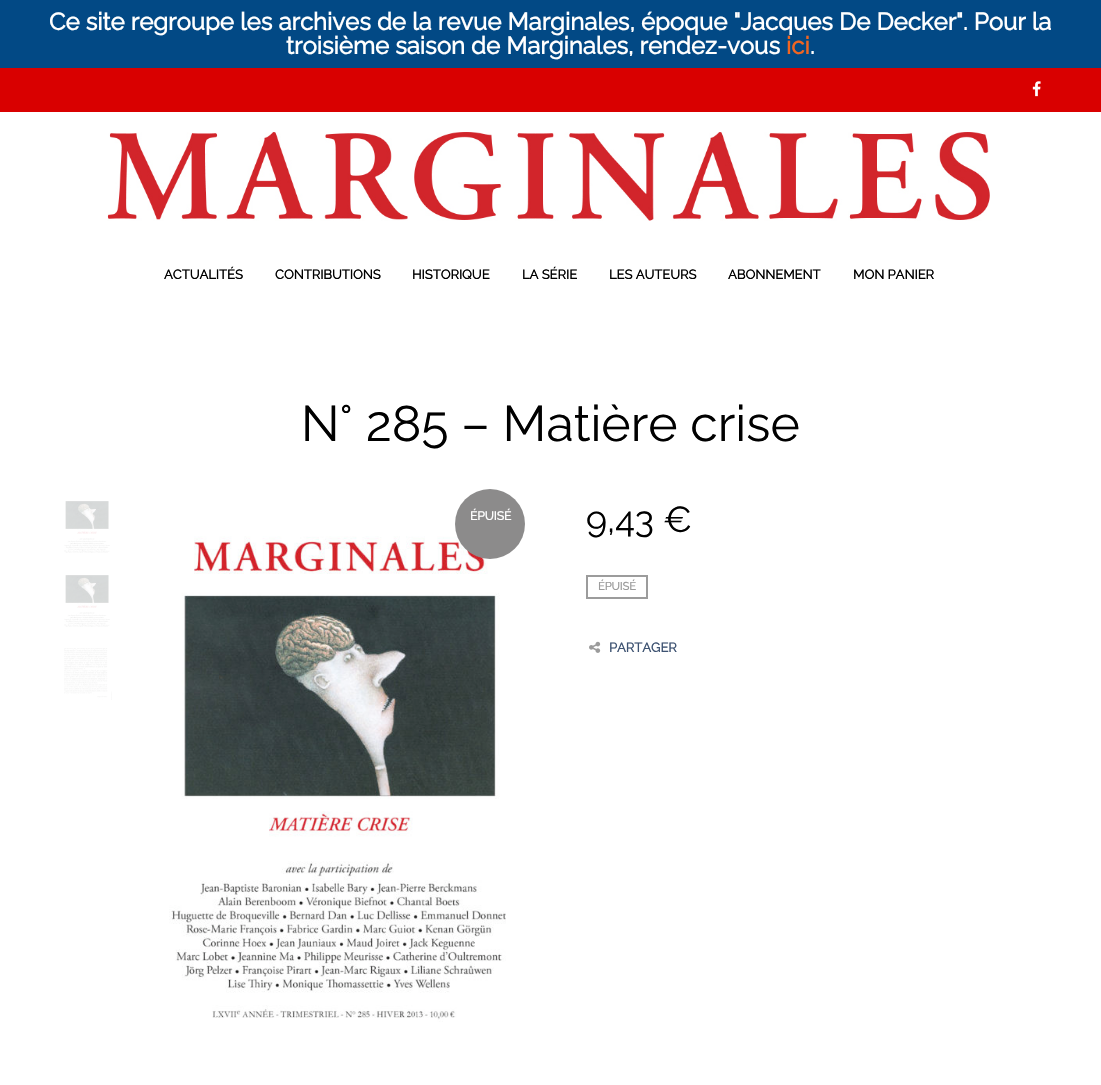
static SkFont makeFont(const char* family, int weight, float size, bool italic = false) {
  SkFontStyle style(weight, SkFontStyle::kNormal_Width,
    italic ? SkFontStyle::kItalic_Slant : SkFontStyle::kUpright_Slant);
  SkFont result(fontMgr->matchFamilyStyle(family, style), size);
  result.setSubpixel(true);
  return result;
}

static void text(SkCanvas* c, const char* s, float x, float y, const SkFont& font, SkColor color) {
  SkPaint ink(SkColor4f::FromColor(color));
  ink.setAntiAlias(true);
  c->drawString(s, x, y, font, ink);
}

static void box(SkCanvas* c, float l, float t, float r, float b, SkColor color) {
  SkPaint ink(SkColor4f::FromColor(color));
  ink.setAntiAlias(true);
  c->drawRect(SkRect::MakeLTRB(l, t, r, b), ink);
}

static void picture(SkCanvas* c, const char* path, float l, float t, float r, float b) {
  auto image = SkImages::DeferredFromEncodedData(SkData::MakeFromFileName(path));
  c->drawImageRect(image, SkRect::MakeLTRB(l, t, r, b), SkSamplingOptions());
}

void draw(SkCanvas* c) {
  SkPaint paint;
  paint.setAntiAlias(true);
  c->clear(0xffffffff);
  box(c, 0, 0, 1101, 68, 0xff024985);
  SkFont face1 = makeFont("Raleway", 700, 24);
  text(c, "Ce site regroupe les archives de la revue Marginales, époque \"Jacques De Decker\". Pour la", 49, 30, face1, 0xffffffff);
  text(c, "troisième saison de Marginales, rendez-vous", 286, 54, face1, 0xffffffff);
  text(c, "ici", 786, 54, face1, 0xfff16521);
  text(c, ".", 810, 54, face1, 0xffffffff);
  box(c, 0, 68, 1101, 112, 0xffd90000);
  picture(c, "img_01.png", 1032, 81, 1041, 97);
  picture(c, "img_02.png", 107, 132, 990, 221);
  SkFont face2 = makeFont("Raleway", 700, 13);
  text(c, "ACTUALITÉS", 164, 279, face2, 0xff000000);
  text(c, "CONTRIBUTIONS", 275, 279, face2, 0xff000000);
  text(c, "HISTORIQUE", 412, 279, face2, 0xff000000);
  text(c, "LA SÉRIE", 522, 279, face2, 0xff000000);
  text(c, "LES AUTEURS", 609, 279, face2, 0xff000000);
  text(c, "ABONNEMENT", 728, 279, face2, 0xff000000);
  text(c, "MON PANIER", 853, 279, face2, 0xff000000);
  SkFont face3 = makeFont("Raleway", 100, 50);
  text(c, "N° 285 – Matière crise", 301, 441, face3, 0xff000000);
  picture(c, "img_03.png", 64, 501, 110, 553);
  picture(c, "img_04.png", 64, 575, 110, 627);
  picture(c, "img_05.png", 64, 648, 112, 700);
  picture(c, "img_06.png", 169, 536, 506, 1022);
  paint.setColor(0xff8c8b8b);
  c->drawCircle(490, 524, 35, paint);
  SkFont face4 = makeFont("Raleway", 700, 12);
  text(c, "ÉPUISÉ", 470, 520, face4, 0xffffffff);
  SkFont face5 = makeFont("Raleway", 100, 36);
  text(c, "9,43 €", 586, 532, face5, 0xff000000);
  paint.setStyle(SkPaint::kStroke_Style);
  paint.setStrokeWidth(2);
  paint.setColor(0xff9c9c9c);
  c->drawRect(SkRect::MakeLTRB(587, 576, 647, 598), paint);
  SkFont face6 = makeFont("Raleway", 700, 11);
  text(c, "ÉPUISÉ", 598, 590, face6, 0xff9c9c9c);
  picture(c, "img_07.png", 589, 641, 601, 653);
  text(c, "PARTAGER", 609, 652, face2, 0xff3e5372);
}
